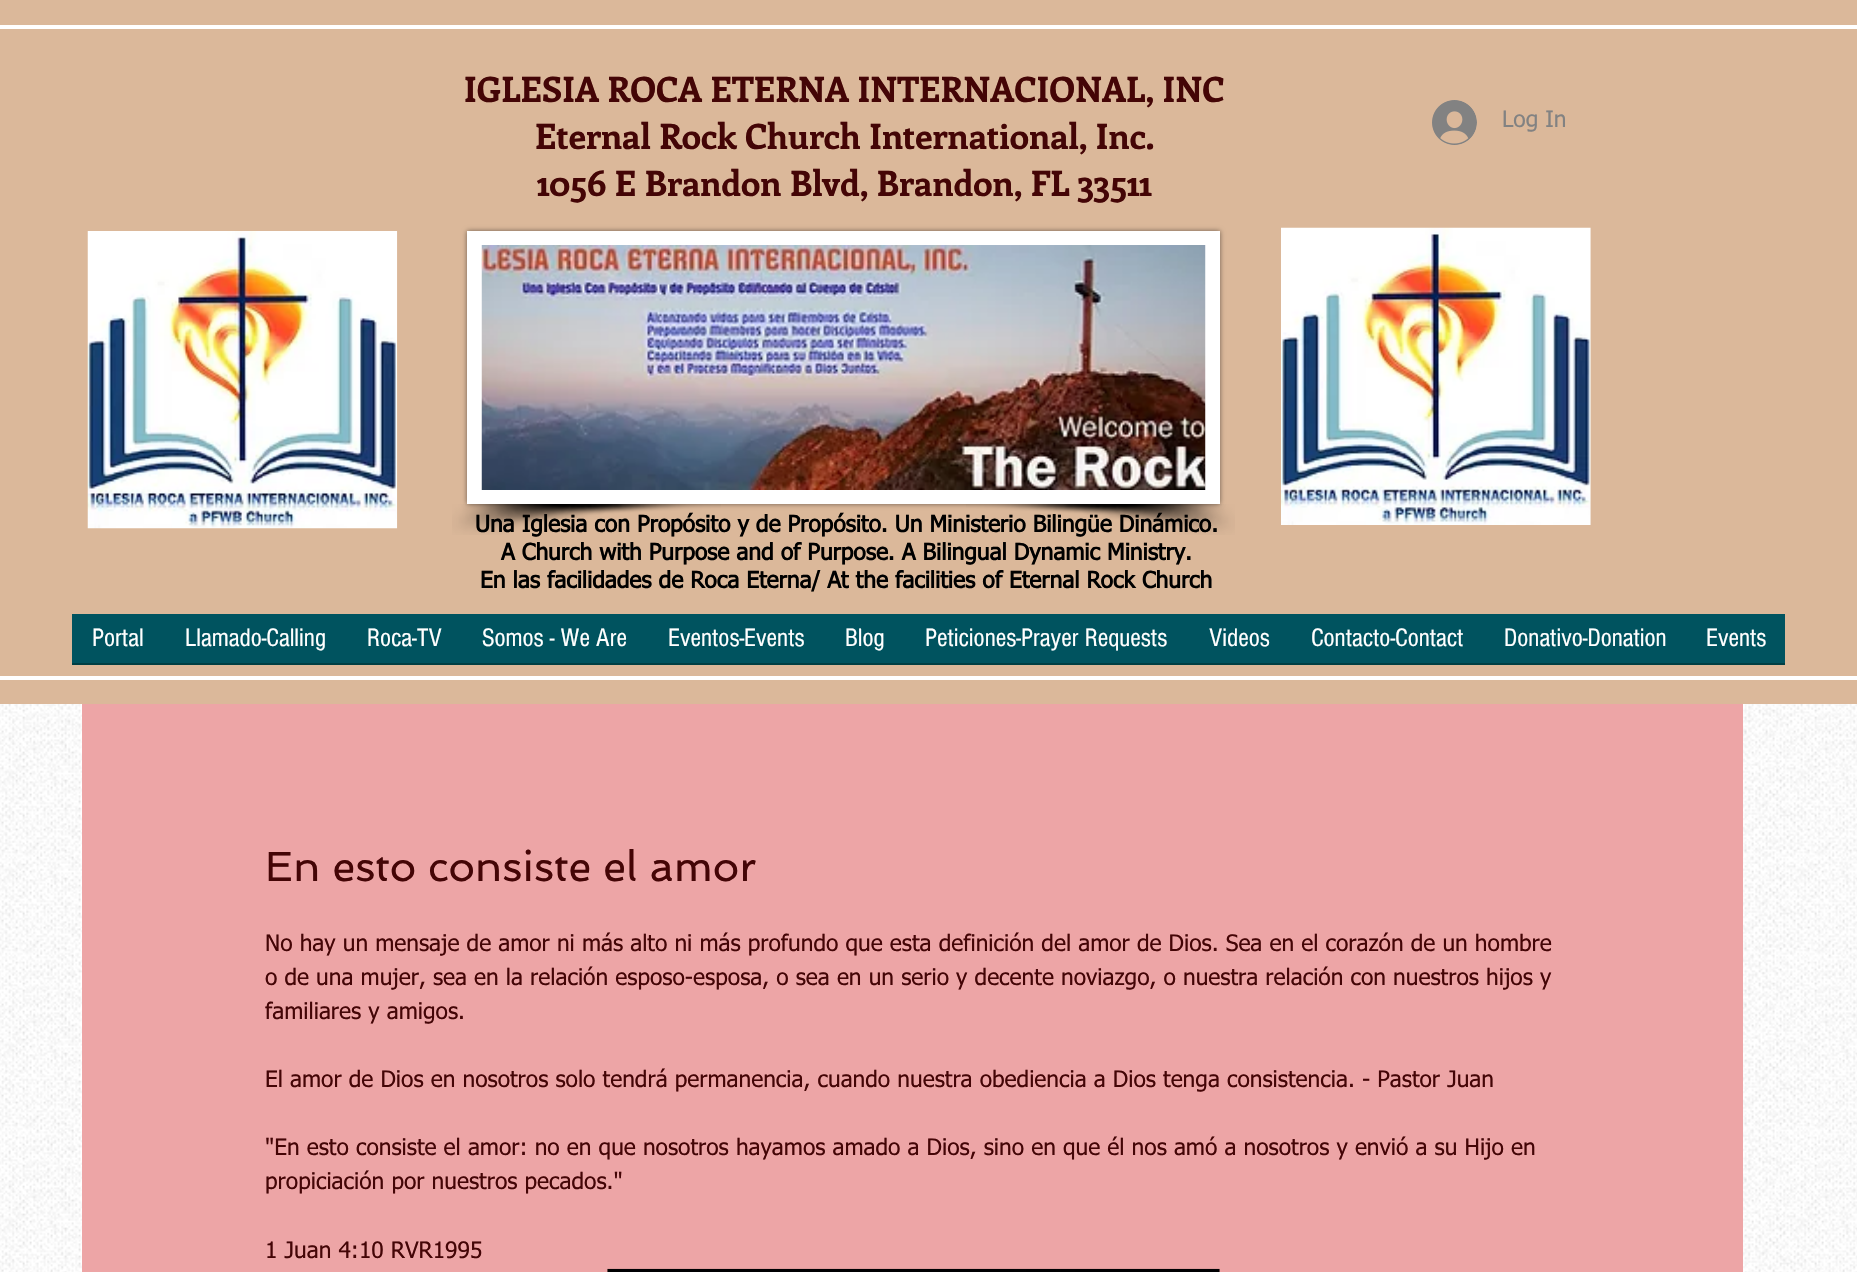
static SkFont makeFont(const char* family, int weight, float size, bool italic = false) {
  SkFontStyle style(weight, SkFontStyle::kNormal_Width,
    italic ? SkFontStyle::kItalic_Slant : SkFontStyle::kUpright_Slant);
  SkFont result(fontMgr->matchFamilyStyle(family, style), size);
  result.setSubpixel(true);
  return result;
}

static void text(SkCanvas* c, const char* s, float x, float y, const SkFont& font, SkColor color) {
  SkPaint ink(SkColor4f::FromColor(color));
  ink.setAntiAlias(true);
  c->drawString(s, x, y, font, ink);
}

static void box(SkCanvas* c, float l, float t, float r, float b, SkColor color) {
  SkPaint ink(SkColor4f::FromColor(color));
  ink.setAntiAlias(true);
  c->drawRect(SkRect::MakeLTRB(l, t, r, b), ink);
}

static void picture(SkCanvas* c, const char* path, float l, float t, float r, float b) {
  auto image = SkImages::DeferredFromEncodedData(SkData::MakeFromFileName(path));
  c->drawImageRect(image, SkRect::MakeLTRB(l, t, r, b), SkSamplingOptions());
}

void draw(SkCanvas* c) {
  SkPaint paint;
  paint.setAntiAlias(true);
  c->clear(0xffffffff);
  box(c, 0, 0, 1857, 704, 0xffdbb89a);
  box(c, 0, 25, 1857, 29, 0xffffffff);
  box(c, 0, 676, 1857, 680, 0xffffffff);
  SkFont face1 = makeFont("Enriqueta", 700, 35);
  text(c, "IGLESIA ROCA ETERNA INTERNACIONAL, INC", 464, 102, face1, 0xff440506);
  text(c, "Eternal Rock Church International, Inc.", 535, 149, face1, 0xff440506);
  text(c, "1056 E Brandon Blvd, Brandon, FL 33511", 537, 196, face1, 0xff440506);
  picture(c, "img_01.png", 1432, 100, 1477, 145);
  SkFont face2 = makeFont("tahoma", 400, 22.75f);
  text(c, "Log In", 1502, 127, face2, 0xff828282);
  picture(c, "img_02.png", 87, 231, 398, 529);
  paint.setColor(0x80000000);
  paint.setMaskFilter(SkMaskFilter::MakeBlur(kNormal_SkBlurStyle, 2.5f));
  c->drawRect(SkRect::MakeLTRB(467, 231, 1220, 504), paint);
  paint.setMaskFilter(nullptr);
  box(c, 467, 231, 1220, 504, 0xffffffff);
  picture(c, "img_03.png", 481, 245, 1206, 490);
  picture(c, "img_04.png", 452, 504, 721, 535);
  picture(c, "img_05.png", 966, 504, 1235, 535);
  picture(c, "img_06.png", 1281, 227, 1591, 525);
  SkFont face3 = makeFont("tahoma", 700, 22.75f);
  text(c, "Una Iglesia con Propósito y de Propósito. Un Ministerio Bilingüe Dinámico.", 475, 532, face3, 0xff000000);
  text(c, "A Church with Purpose and of Purpose. A Bilingual Dynamic Ministry.", 501, 560, face3, 0xff000000);
  text(c, "En las facilidades de Roca Eterna/ At the facilities of Eternal Rock Church", 480, 588, face3, 0xff000000);
  box(c, 72, 614, 1785, 663, 0xff00535f);
  box(c, 72, 663, 1785, 665, 0xff003f44);
  SkFont face4 = makeFont("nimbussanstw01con", 400, 26.25f);
  text(c, "Portal", 92, 646, face4, 0xffffffff);
  text(c, "Llamado-Calling", 185, 646, face4, 0xffffffff);
  text(c, "Roca-TV", 367, 646, face4, 0xffffffff);
  text(c, "Somos - We Are", 482, 646, face4, 0xffffffff);
  text(c, "Eventos-Events", 668, 646, face4, 0xffffffff);
  text(c, "Blog", 845, 646, face4, 0xffffffff);
  text(c, "Peticiones-Prayer Requests", 925, 646, face4, 0xffffffff);
  text(c, "Videos", 1209, 646, face4, 0xffffffff);
  text(c, "Contacto-Contact", 1311, 646, face4, 0xffffffff);
  text(c, "Donativo-Donation", 1504, 646, face4, 0xffffffff);
  text(c, "Events", 1706, 646, face4, 0xffffffff);
  picture(c, "img_08.png", 0, 704, 1857, 1272);
  box(c, 82, 704, 1743, 1272, 0xffeda5a6);
  SkFont face5 = makeFont("Spinnaker", 400, 42);
  text(c, "En esto consiste el amor", 265, 881, face5, 0xff440506);
  text(c, "No hay un mensaje de amor ni más alto ni más profundo que esta definición del amor de Dios. Sea en el corazón de un hombre", 265, 951, face2, 0xff440506);
  text(c, "o de una mujer, sea en la relación esposo-esposa, o sea en un serio y decente noviazgo, o nuestra relación con nuestros hijos y", 265, 985, face2, 0xff440506);
  text(c, "familiares y amigos.", 265, 1019, face2, 0xff440506);
  text(c, "El amor de Dios en nosotros solo tendrá permanencia, cuando nuestra obediencia a Dios tenga consistencia. - Pastor Juan", 265, 1087, face2, 0xff440506);
  text(c, "\"En esto consiste el amor: no en que nosotros hayamos amado a Dios, sino en que él nos amó a nosotros y envió a su Hijo en", 265, 1155, face2, 0xff440506);
  text(c, "propiciación por nuestros pecados.\"", 265, 1189, face2, 0xff440506);
  text(c, "1 Juan 4:10 RVR1995", 265, 1258, face2, 0xff440506);
  picture(c, "img_07.png", 607, 1268, 1220, 1272);
}
